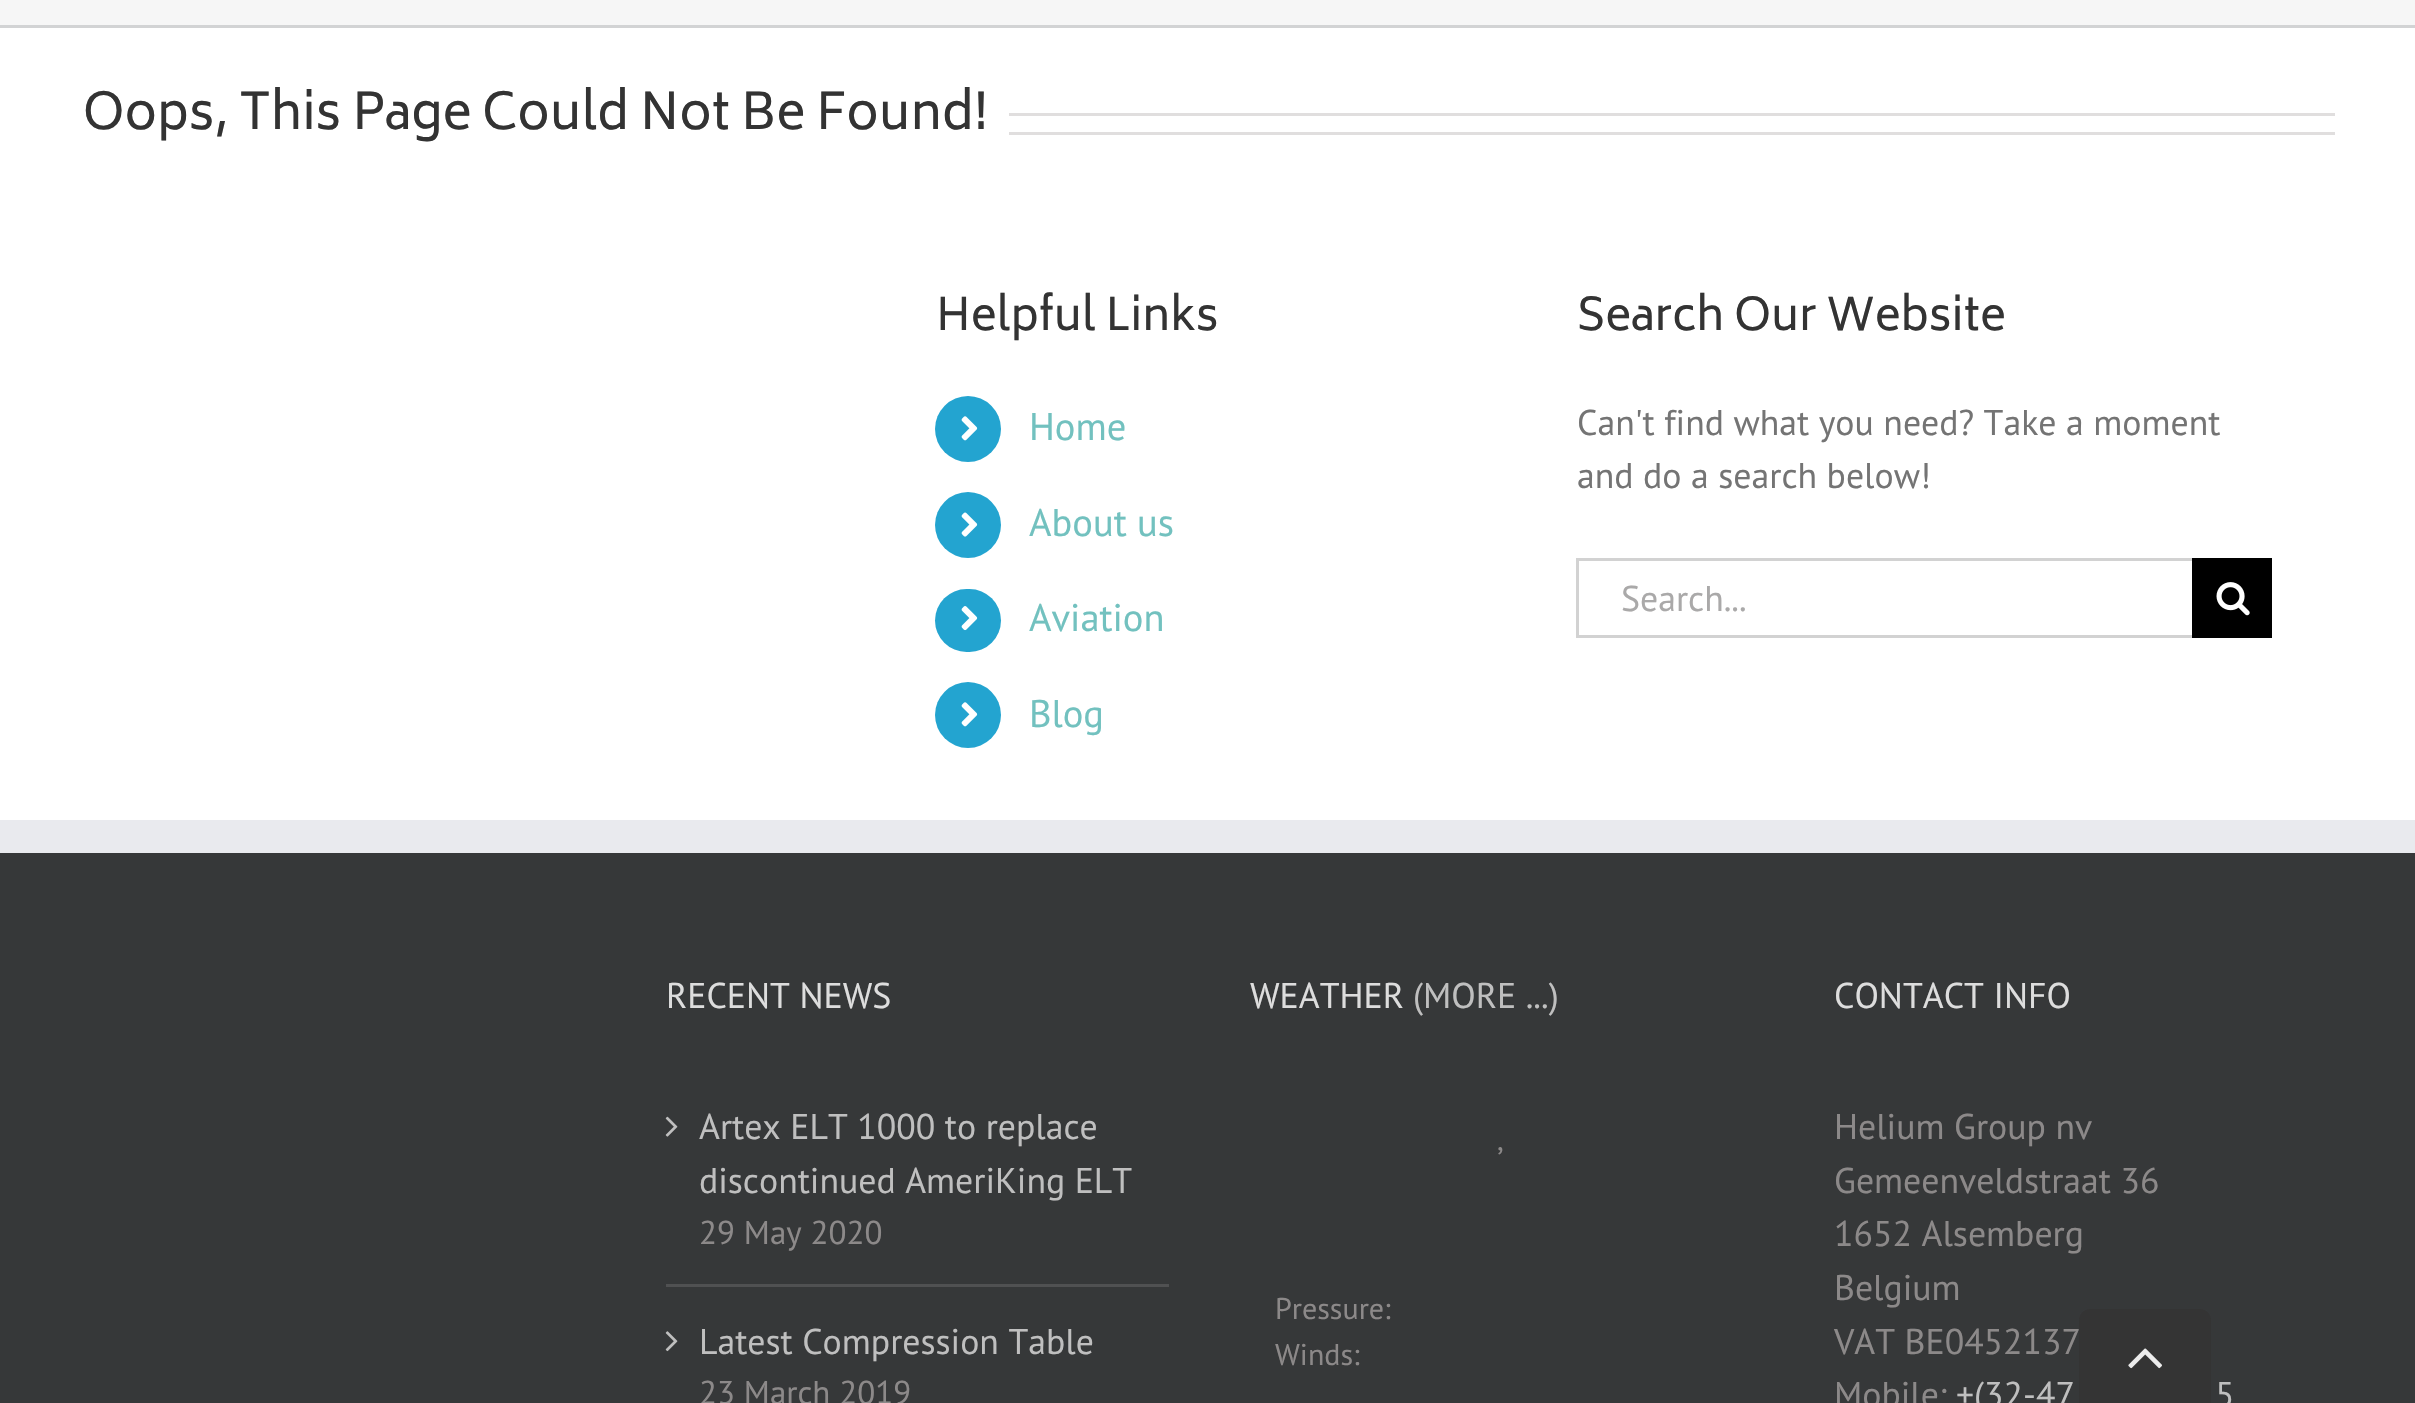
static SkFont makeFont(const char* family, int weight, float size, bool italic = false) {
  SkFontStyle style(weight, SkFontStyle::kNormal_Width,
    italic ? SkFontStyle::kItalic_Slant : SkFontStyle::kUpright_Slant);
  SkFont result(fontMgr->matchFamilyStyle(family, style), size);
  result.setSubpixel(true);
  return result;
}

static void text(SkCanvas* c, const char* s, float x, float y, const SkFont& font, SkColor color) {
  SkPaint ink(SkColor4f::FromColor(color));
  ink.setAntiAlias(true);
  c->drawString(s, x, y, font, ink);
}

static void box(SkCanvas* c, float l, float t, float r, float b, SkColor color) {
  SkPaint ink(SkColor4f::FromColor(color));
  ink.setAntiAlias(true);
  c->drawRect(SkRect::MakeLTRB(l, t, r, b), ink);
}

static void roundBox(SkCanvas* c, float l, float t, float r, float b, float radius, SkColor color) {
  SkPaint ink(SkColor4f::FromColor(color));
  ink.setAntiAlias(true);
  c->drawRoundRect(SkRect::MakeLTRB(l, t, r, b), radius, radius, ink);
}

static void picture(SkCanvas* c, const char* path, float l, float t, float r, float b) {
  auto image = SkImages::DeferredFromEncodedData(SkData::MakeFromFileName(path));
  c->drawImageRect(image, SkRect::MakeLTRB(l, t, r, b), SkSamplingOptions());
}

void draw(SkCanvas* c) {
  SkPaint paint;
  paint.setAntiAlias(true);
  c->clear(0xffffffff);
  box(c, 0, 0, 2415, 25, 0xfff6f6f6);
  box(c, 0, 25, 2415, 28, 0xffd2d3d4);
  SkFont face1 = makeFont("Biryani", 400, 49.5f);
  text(c, "Oops, This Page Could Not Be Found!", 83, 129, face1, 0xff333333);
  box(c, 1009, 113, 2335, 116, 0xffe0dede);
  box(c, 1009, 132, 2335, 135, 0xffe0dede);
  SkFont face2 = makeFont("Biryani", 400, 44);
  text(c, "Helpful Links", 936, 330, face2, 0xff333333);
  paint.setColor(0xff23a4d0);
  c->drawCircle(968, 429, 33, paint);
  picture(c, "img_01.png", 961, 416, 978, 441);
  SkFont face3 = makeFont("PT Sans", 400, 38.5f);
  text(c, "Home", 1029, 440, face3, 0xff72c1bf);
  c->drawCircle(968, 525, 33, paint);
  picture(c, "img_02.png", 961, 512, 978, 537);
  text(c, "About us", 1029, 536, face3, 0xff72c1bf);
  roundBox(c, 935, 589, 1001, 652, 31.5f, 0xff23a4d0);
  picture(c, "img_03.png", 961, 606, 978, 631);
  text(c, "Aviation", 1029, 631, face3, 0xff72c1bf);
  c->drawCircle(968, 715, 33, paint);
  picture(c, "img_01.png", 961, 702, 978, 727);
  text(c, "Blog", 1029, 727, face3, 0xff72c1bf);
  text(c, "Search Our Website", 1577, 330, face2, 0xff333333);
  SkFont face4 = makeFont("PT Sans", 400, 35.75f);
  text(c, "Can't find what you need? Take a moment", 1577, 435, face4, 0xff747474);
  text(c, "and do a search below!", 1577, 488, face4, 0xff747474);
  box(c, 1576, 558, 2192, 561, 0xffd2d2d2);
  box(c, 1576, 635, 2192, 638, 0xffd2d2d2);
  box(c, 1576, 558, 1579, 638, 0xffd2d2d2);
  text(c, "Search...", 1621, 611, face4, 0xffaaa9a9);
  box(c, 2192, 558, 2272, 638, 0xff000000);
  picture(c, "img_04.png", 2216, 582, 2250, 616);
  box(c, 0, 853, 2415, 1403, 0xff363839);
  box(c, 0, 820, 2415, 853, 0xffe9eaee);
  text(c, "RECENT NEWS", 666, 1008, face4, 0xffdddddd);
  box(c, 666, 1284, 1169, 1287, 0xff505152);
  picture(c, "img_05.png", 665, 1116, 678, 1137);
  text(c, "Artex ELT 1000 to replace", 699, 1139, face4, 0xffbfbfbf);
  text(c, "discontinued AmeriKing ELT", 699, 1193, face4, 0xffbfbfbf);
  SkFont face5 = makeFont("PT Sans", 400, 33);
  text(c, "29 May 2020", 699, 1244, face5, 0xff8c8989);
  picture(c, "img_06.png", 665, 1331, 678, 1352);
  text(c, "Latest Compression Table", 699, 1354, face4, 0xffbfbfbf);
  text(c, "23 March 2019", 699, 1404, face5, 0xff8c8989);
  text(c, "WEATHER", 1250, 1008, face4, 0xffdddddd);
  text(c, "(MORE ...)", 1413, 1008, face4, 0xffbfbfbf);
  SkFont face6 = makeFont("PT Sans", 400, 30);
  text(c, ",", 1497, 1150, face6, 0xff8c8989);
  text(c, "Pressure:", 1275, 1319, face6, 0xff8c8989);
  text(c, "Winds:", 1275, 1365, face6, 0xff8c8989);
  text(c, "CONTACT INFO", 1834, 1008, face4, 0xffdddddd);
  text(c, "Helium Group nv", 1834, 1139, face4, 0xff8c8989);
  text(c, "Gemeenveldstraat 36", 1834, 1193, face4, 0xff8c8989);
  text(c, "1652 Alsemberg", 1834, 1246, face4, 0xff8c8989);
  text(c, "Belgium", 1834, 1300, face4, 0xff8c8989);
  text(c, "VAT BE0452137", 1834, 1354, face4, 0xff8c8989);
  text(c, "Mobile:", 1834, 1407, face4, 0xff8c8989);
  text(c, "+(32-47", 1956, 1407, face4, 0xffbfbfbf);
  text(c, "5", 2215, 1407, face4, 0xffbfbfbf);
  paint.setColor(0xe6333333);
  c->drawPath(SkPathBuilder().moveTo(2090, 1309).lineTo(2200, 1309).cubicTo(2206, 1309, 2211, 1314, 2211, 1320).lineTo(2211, 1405).lineTo(2079, 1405).lineTo(2079, 1320).cubicTo(2079, 1314, 2084, 1309, 2090, 1309).close().detach(), paint);
  picture(c, "img_07.png", 2128, 1348, 2162, 1369);
}
